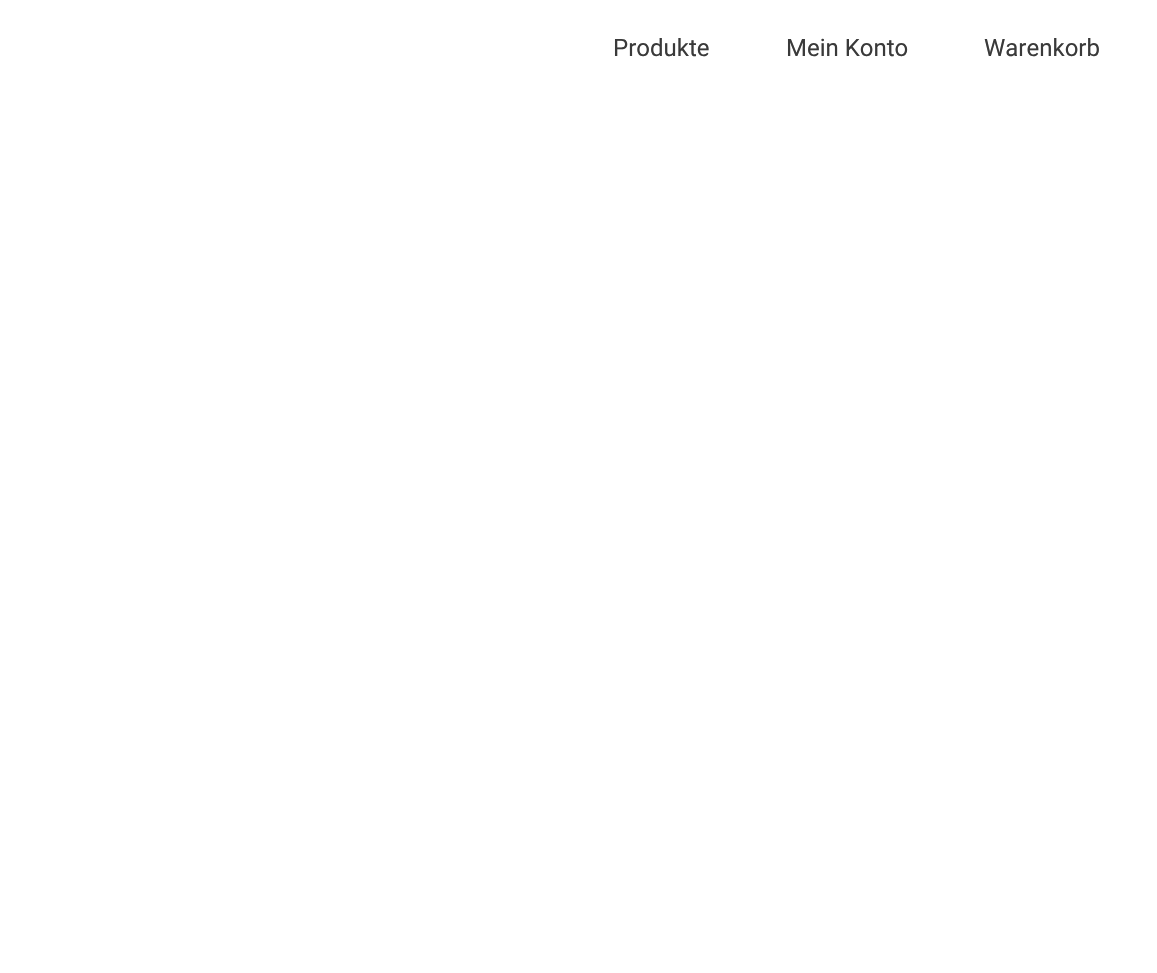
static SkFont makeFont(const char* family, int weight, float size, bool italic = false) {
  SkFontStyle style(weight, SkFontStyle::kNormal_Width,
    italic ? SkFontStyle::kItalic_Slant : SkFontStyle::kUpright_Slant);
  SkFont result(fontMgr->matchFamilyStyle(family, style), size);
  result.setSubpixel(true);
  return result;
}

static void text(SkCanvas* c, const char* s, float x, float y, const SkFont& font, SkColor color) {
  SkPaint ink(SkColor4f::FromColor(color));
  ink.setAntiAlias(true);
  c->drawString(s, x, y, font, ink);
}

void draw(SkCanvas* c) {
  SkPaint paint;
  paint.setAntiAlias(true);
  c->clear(0xffffffff);
  SkFont face1 = makeFont("Roboto", 400, 24);
  text(c, "Produkte", 613, 56, face1, 0xff3a3a3a);
  text(c, "Mein Konto", 786, 56, face1, 0xff3a3a3a);
  text(c, "Warenkorb", 984, 56, face1, 0xff3a3a3a);
}
